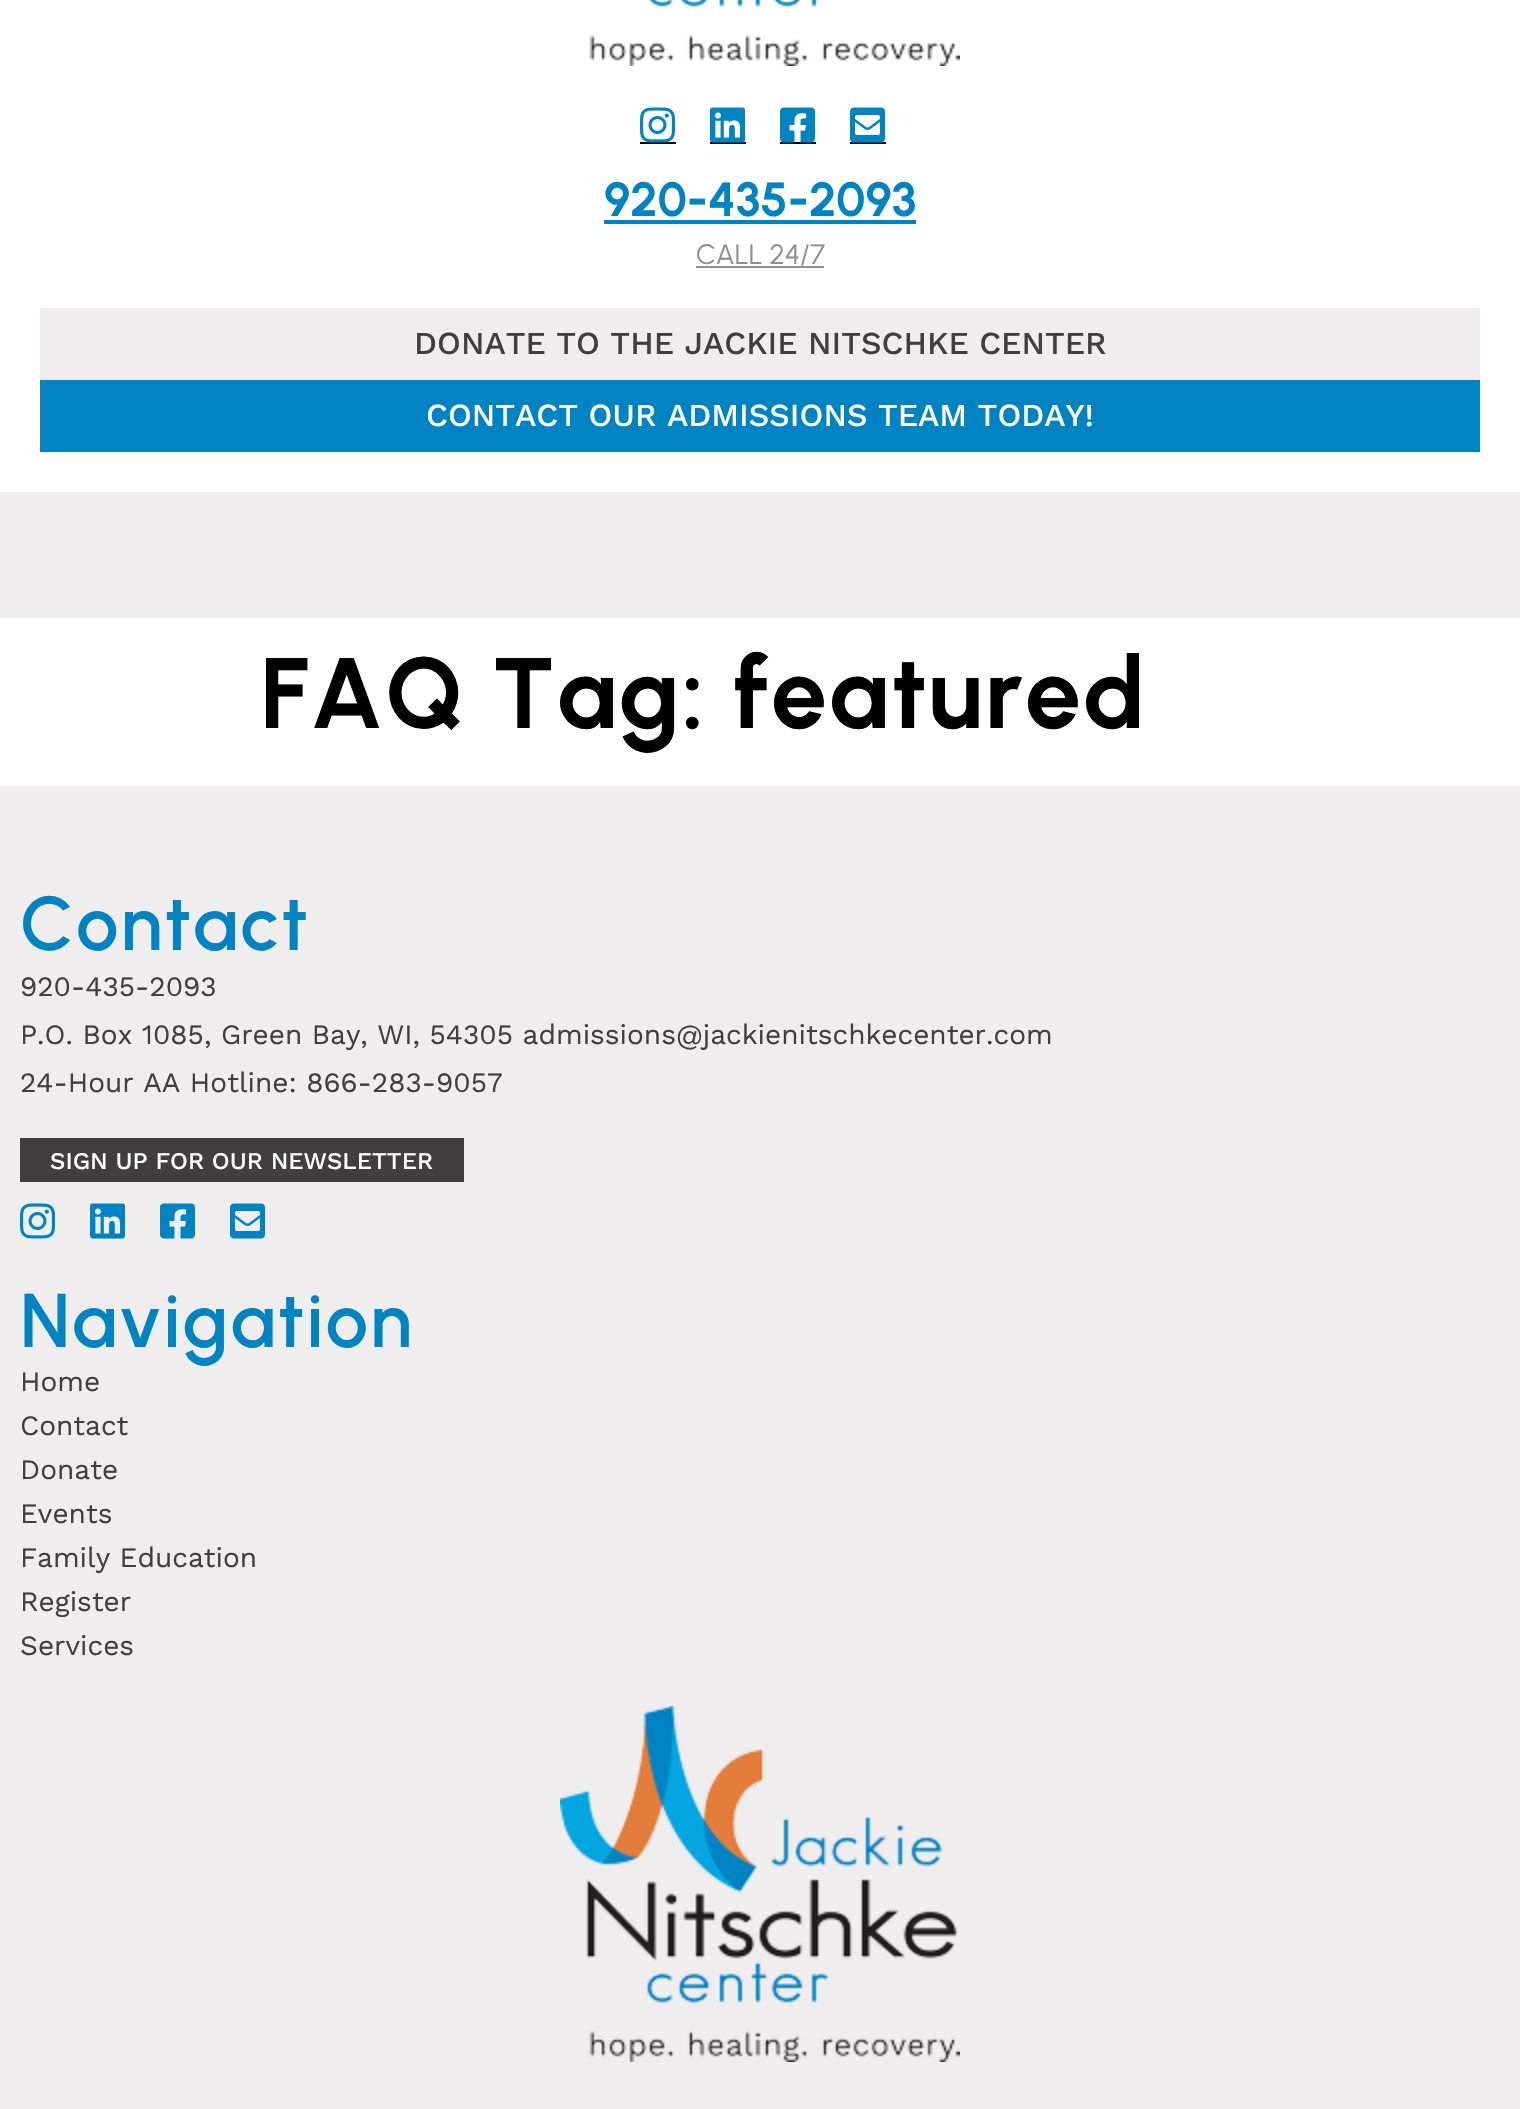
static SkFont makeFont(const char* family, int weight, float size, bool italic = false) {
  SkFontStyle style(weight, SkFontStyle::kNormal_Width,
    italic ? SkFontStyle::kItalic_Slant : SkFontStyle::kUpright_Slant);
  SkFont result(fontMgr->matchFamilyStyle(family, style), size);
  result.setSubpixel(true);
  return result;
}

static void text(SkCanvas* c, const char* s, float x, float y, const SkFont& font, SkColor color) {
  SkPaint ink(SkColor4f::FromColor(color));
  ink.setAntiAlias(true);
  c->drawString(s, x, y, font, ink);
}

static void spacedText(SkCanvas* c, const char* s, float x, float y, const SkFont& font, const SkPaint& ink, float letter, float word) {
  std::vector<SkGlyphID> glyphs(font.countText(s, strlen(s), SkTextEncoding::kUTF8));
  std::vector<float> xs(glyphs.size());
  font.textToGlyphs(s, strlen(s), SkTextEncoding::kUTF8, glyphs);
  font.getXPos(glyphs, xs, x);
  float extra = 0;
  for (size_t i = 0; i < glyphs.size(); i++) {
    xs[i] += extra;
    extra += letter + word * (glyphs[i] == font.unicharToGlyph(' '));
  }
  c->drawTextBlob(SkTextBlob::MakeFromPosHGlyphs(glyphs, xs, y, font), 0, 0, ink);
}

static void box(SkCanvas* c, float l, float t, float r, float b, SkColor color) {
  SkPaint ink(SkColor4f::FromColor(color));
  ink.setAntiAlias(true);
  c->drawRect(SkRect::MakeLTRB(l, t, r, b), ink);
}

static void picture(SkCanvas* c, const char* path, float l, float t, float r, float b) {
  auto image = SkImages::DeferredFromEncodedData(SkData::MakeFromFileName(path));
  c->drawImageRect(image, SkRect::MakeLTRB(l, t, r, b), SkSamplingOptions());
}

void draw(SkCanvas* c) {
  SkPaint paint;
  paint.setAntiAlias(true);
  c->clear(0xffffffff);
  picture(c, "img_01.png", 589, 0, 960, 66);
  box(c, 640, 142, 676, 144, 0xff000000);
  picture(c, "img_02.png", 640, 107, 676, 143);
  box(c, 710, 142, 746, 144, 0xff000000);
  picture(c, "img_03.png", 710, 107, 745, 143);
  box(c, 780, 142, 816, 144, 0xff000000);
  picture(c, "img_04.png", 780, 107, 815, 143);
  box(c, 850, 142, 886, 144, 0xff000000);
  picture(c, "img_05.png", 850, 107, 885, 143);
  SkFont face1 = makeFont("Urbanist", 700, 48);
  text(c, "920-435-2093", 604, 216, face1, 0xff0083c2);
  box(c, 604, 220, 916, 224, 0xff0083c2);
  SkFont face2 = makeFont("Urbanist", 400, 28);
  text(c, "CALL 24/7", 696, 264, face2, 0xff918e8f);
  box(c, 696, 266, 824, 268, 0xff918e8f);
  box(c, 40, 308, 1480, 380, 0xfff0edee);
  SkFont face3 = makeFont("Work Sans", 500, 32);
  text(c, "DONATE TO THE JACKIE NITSCHKE CENTER", 414, 354, face3, 0xff413e3f);
  box(c, 40, 380, 1480, 452, 0xff0083c2);
  text(c, "CONTACT OUR ADMISSIONS TEAM TODAY!", 426, 426, face3, 0xffffffff);
  box(c, 0, 492, 1520, 618, 0xfff0edee);
  SkFont face4 = makeFont("Urbanist", 700, 100);
  paint.setColor(0xff000000);
  spacedText(c, "FAQ Tag: featured", 260, 728, face4, paint, 2, 0);
  box(c, 0, 786, 1520, 2109, 0xfff0edee);
  SkFont face5 = makeFont("Urbanist", 600, 76);
  paint.setColor(0xff0083c2);
  spacedText(c, "Contact", 20, 950, face5, paint, 2, 0);
  SkFont face6 = makeFont("Work Sans", 400, 28);
  text(c, "920-435-2093", 20, 996, face6, 0xff413e3f);
  text(c, "P.O. Box 1085, Green Bay, WI, 54305 admissions@jackienitschkecenter.com", 20, 1044, face6, 0xff413e3f);
  text(c, "24-Hour AA Hotline: 866-283-9057", 20, 1092, face6, 0xff413e3f);
  box(c, 20, 1138, 464, 1182, 0xff413e3f);
  SkFont face7 = makeFont("Work Sans", 500, 24);
  text(c, "SIGN UP FOR OUR NEWSLETTER", 50, 1169, face7, 0xffffffff);
  picture(c, "img_06.png", 20, 1203, 56, 1239);
  picture(c, "img_07.png", 90, 1203, 125, 1239);
  picture(c, "img_08.png", 160, 1203, 195, 1239);
  picture(c, "img_09.png", 230, 1203, 265, 1239);
  spacedText(c, "Navigation", 20, 1347, face5, paint, 2, 0);
  text(c, "Home", 20, 1391, face6, 0xff413e3f);
  text(c, "Contact", 20, 1435, face6, 0xff413e3f);
  text(c, "Donate", 20, 1479, face6, 0xff413e3f);
  text(c, "Events", 20, 1523, face6, 0xff413e3f);
  text(c, "Family Education", 20, 1567, face6, 0xff413e3f);
  text(c, "Register", 20, 1611, face6, 0xff413e3f);
  text(c, "Services", 20, 1655, face6, 0xff413e3f);
  picture(c, "img_10.png", 560, 1706, 960, 2062);
}
